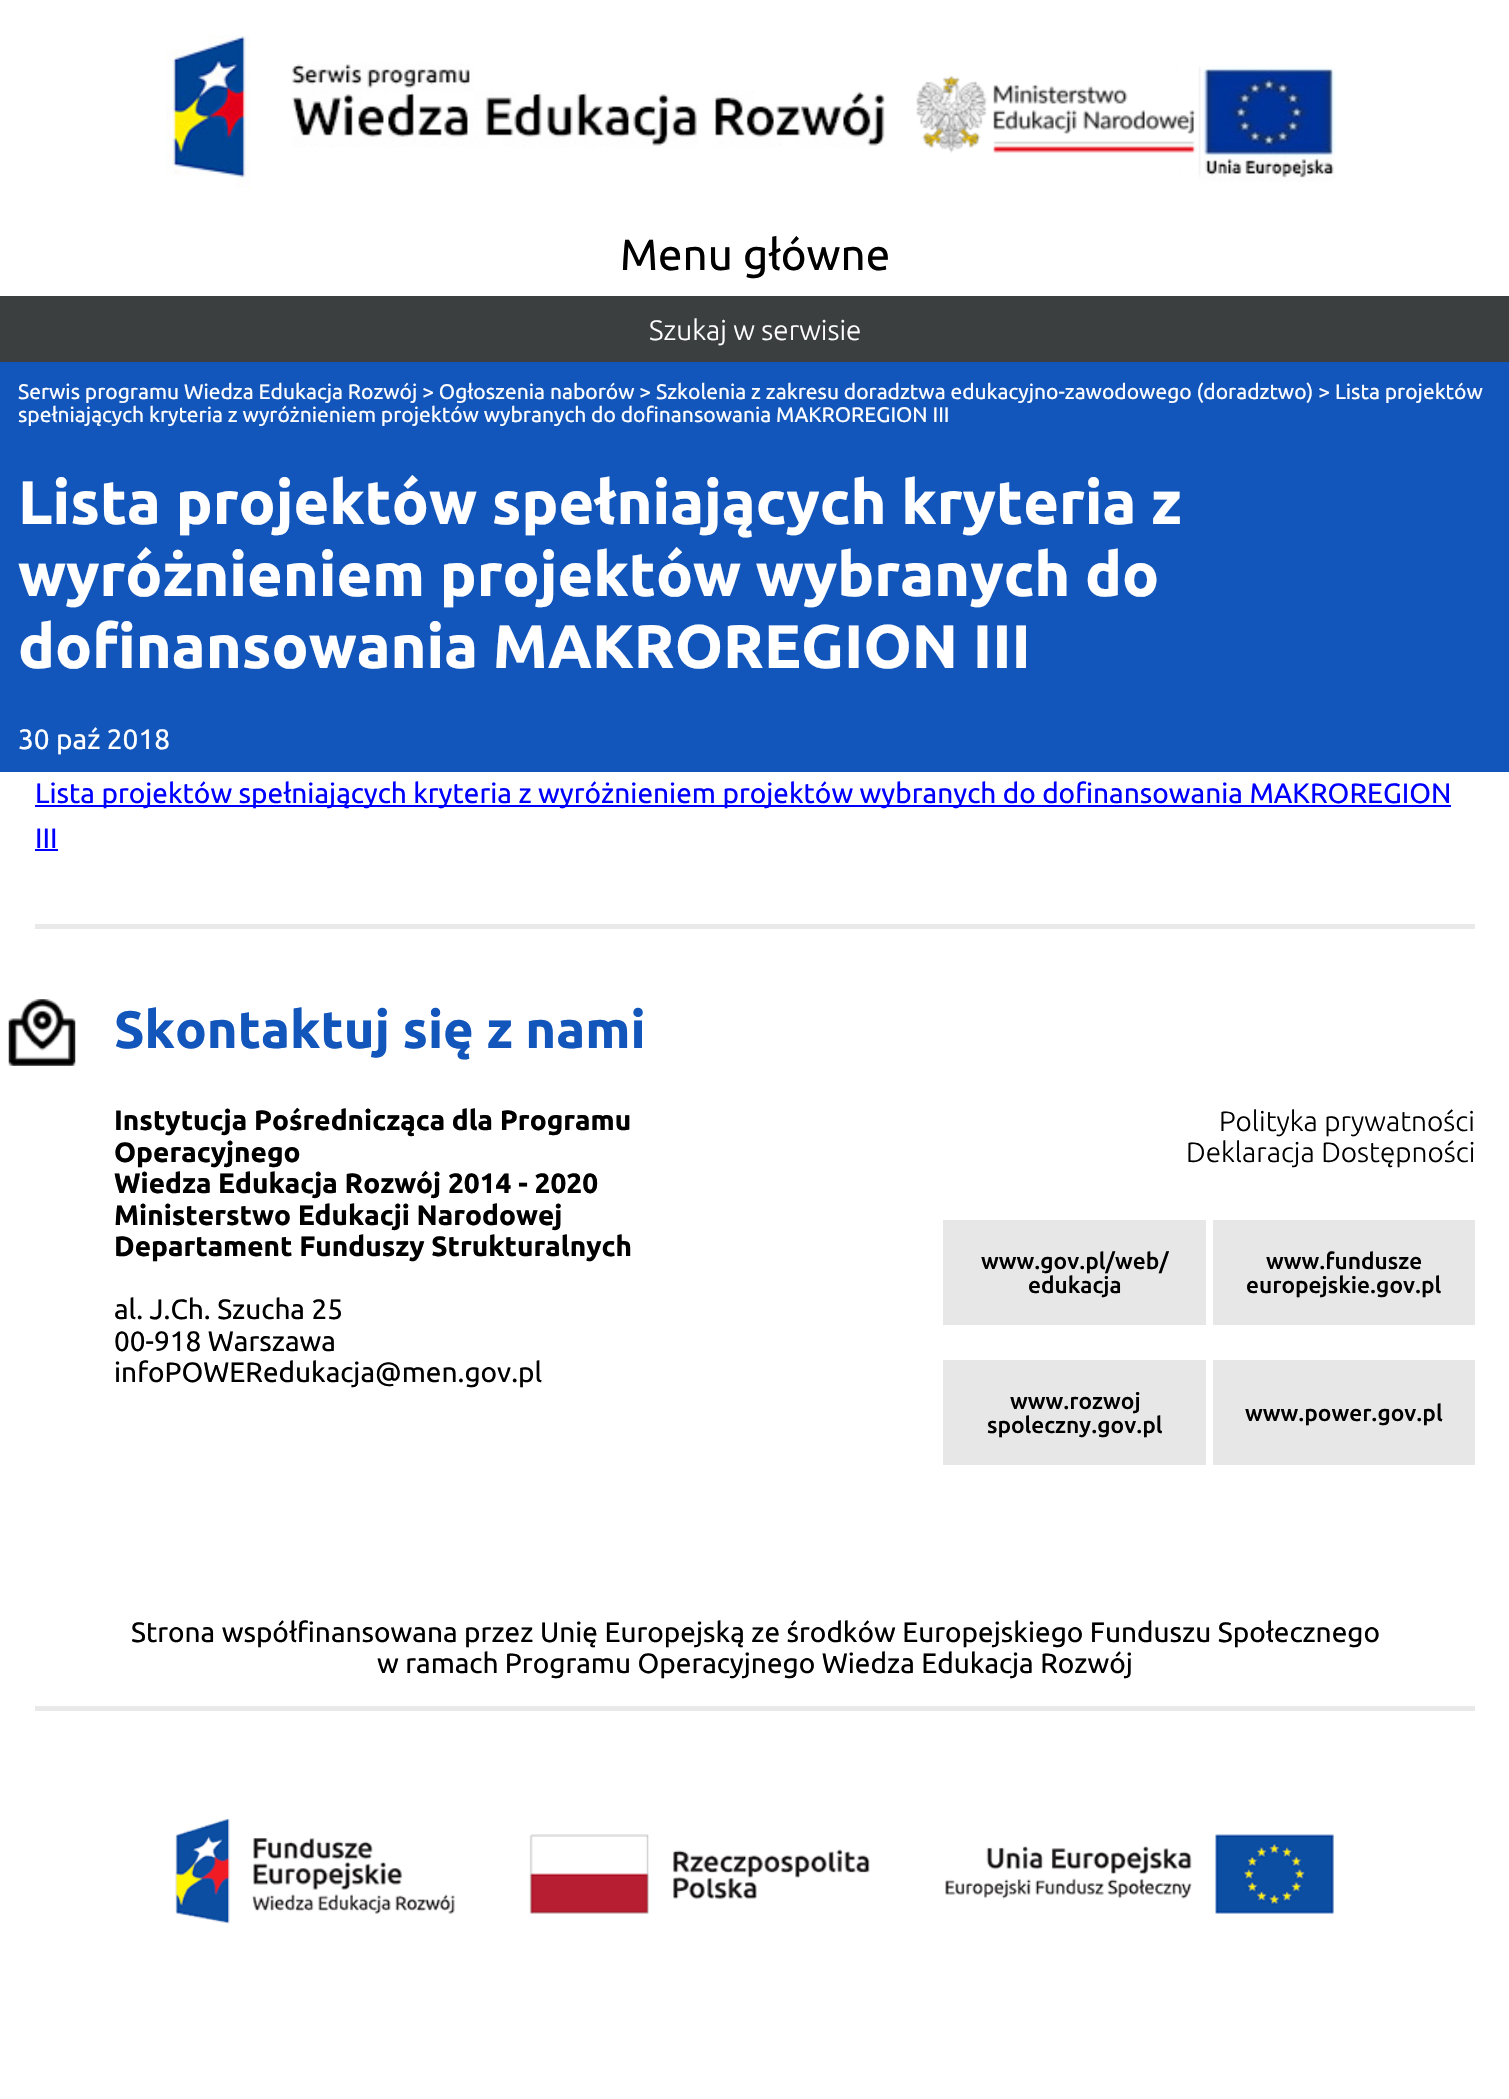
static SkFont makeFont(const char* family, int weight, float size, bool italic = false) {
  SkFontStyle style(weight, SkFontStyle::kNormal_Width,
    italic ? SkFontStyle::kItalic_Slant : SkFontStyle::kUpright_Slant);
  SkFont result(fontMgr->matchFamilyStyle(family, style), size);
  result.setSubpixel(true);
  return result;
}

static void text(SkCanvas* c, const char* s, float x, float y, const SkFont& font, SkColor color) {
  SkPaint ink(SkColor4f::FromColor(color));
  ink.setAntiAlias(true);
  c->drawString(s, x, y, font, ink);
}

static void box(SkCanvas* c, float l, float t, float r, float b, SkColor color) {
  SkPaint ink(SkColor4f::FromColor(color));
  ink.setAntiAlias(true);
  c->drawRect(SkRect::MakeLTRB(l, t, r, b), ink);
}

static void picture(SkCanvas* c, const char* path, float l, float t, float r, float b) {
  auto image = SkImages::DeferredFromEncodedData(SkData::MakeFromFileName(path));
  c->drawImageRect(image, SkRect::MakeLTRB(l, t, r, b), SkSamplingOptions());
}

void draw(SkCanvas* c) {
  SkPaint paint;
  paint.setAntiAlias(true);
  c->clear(0xffffffff);
  picture(c, "img_01.png", 166, 35, 885, 189);
  picture(c, "img_02.png", 916, 66, 1336, 182);
  SkFont face1 = makeFont("Ubuntu", 400, 43.75f);
  text(c, "Menu główne", 620, 270, face1, 0xff000000);
  box(c, 0, 296, 1509, 362, 0xff3c3f3f);
  SkFont face2 = makeFont("Ubuntu", 300, 28);
  text(c, "Szukaj w serwisie", 649, 340, face2, 0xffffffff);
  box(c, 0, 362, 1509, 772, 0xff1256bb);
  SkFont face3 = makeFont("Ubuntu", 400, 21);
  text(c, "Serwis programu Wiedza Edukacja Rozwój > Ogłoszenia naborów > Szkolenia z zakresu doradztwa edukacyjno-zawodowego (doradztwo) > Lista projektów", 18, 399, face3, 0xffffffff);
  text(c, "spełniających kryteria z wyróżnieniem projektów wybranych do dofinansowania MAKROREGION III", 18, 422, face3, 0xffffffff);
  SkFont face4 = makeFont("Ubuntu", 700, 61.25f);
  text(c, "Lista projektów spełniających kryteria z", 18, 524, face4, 0xffffffff);
  text(c, "wyróżnieniem projektów wybranych do", 18, 596, face4, 0xffffffff);
  text(c, "dofinansowania MAKROREGION III", 18, 668, face4, 0xffffffff);
  SkFont face5 = makeFont("Ubuntu", 400, 28);
  text(c, "30 paź 2018", 18, 749, face5, 0xffffffff);
  box(c, 35, 805, 1451, 807, 0xff0000ff);
  text(c, "Lista projektów spełniających kryteria z wyróżnieniem projektów wybranych do dofinansowania MAKROREGION", 35, 803, face5, 0xff0000ff);
  text(c, "III", 35, 848, face5, 0xff0000ff);
  box(c, 35, 849, 58, 851, 0xff0000ff);
  box(c, 35, 924, 1475, 929, 0xffe9e9e9);
  picture(c, "img_03.png", 8, 999, 76, 1066);
  SkFont face6 = makeFont("Ubuntu", 700, 52.5f);
  text(c, "Skontaktuj się z nami", 114, 1048, face6, 0xff1256bb);
  SkFont face7 = makeFont("Ubuntu", 700, 28);
  text(c, "Instytucja Pośrednicząca dla Programu", 114, 1130, face7, 0xff000000);
  text(c, "Operacyjnego", 114, 1162, face7, 0xff000000);
  text(c, "Wiedza Edukacja Rozwój 2014 - 2020", 114, 1193, face7, 0xff000000);
  text(c, "Ministerstwo Edukacji Narodowej", 114, 1225, face7, 0xff000000);
  text(c, "Departament Funduszy Strukturalnych", 114, 1256, face7, 0xff000000);
  text(c, "al. J.Ch. Szucha 25", 114, 1319, face5, 0xff000000);
  text(c, "00-918 Warszawa", 114, 1351, face5, 0xff000000);
  text(c, "infoPOWERedukacja@men.gov.pl", 114, 1382, face5, 0xff000000);
  text(c, "Polityka prywatności", 1219, 1131, face2, 0xff000000);
  text(c, "Deklaracja Dostępności", 1186, 1162, face2, 0xff000000);
  box(c, 943, 1220, 1206, 1325, 0xffe7e7e7);
  SkFont face8 = makeFont("Ubuntu", 500, 22.75f);
  text(c, "www.gov.pl/web/", 981, 1269, face8, 0xff000000);
  text(c, "edukacja", 1028, 1293, face8, 0xff000000);
  box(c, 1213, 1220, 1475, 1325, 0xffe7e7e7);
  text(c, "www.fundusze", 1266, 1269, face8, 0xff000000);
  text(c, "europejskie.gov.pl", 1246, 1293, face8, 0xff000000);
  box(c, 943, 1360, 1206, 1465, 0xffe7e7e7);
  text(c, "www.rozwoj", 1010, 1409, face8, 0xff000000);
  text(c, "spoleczny.gov.pl", 987, 1433, face8, 0xff000000);
  box(c, 1213, 1360, 1475, 1465, 0xffe7e7e7);
  text(c, "www.power.gov.pl", 1245, 1421, face8, 0xff000000);
  text(c, "Strona współfinansowana przez Unię Europejską ze środków Europejskiego Funduszu Społecznego", 131, 1642, face5, 0xff000000);
  text(c, "w ramach Programu Operacyjnego Wiedza Edukacja Rozwój", 377, 1673, face5, 0xff000000);
  box(c, 35, 1706, 1475, 1711, 0xffe9e9e9);
  picture(c, "img_04.png", 175, 1819, 1334, 1924);
}
